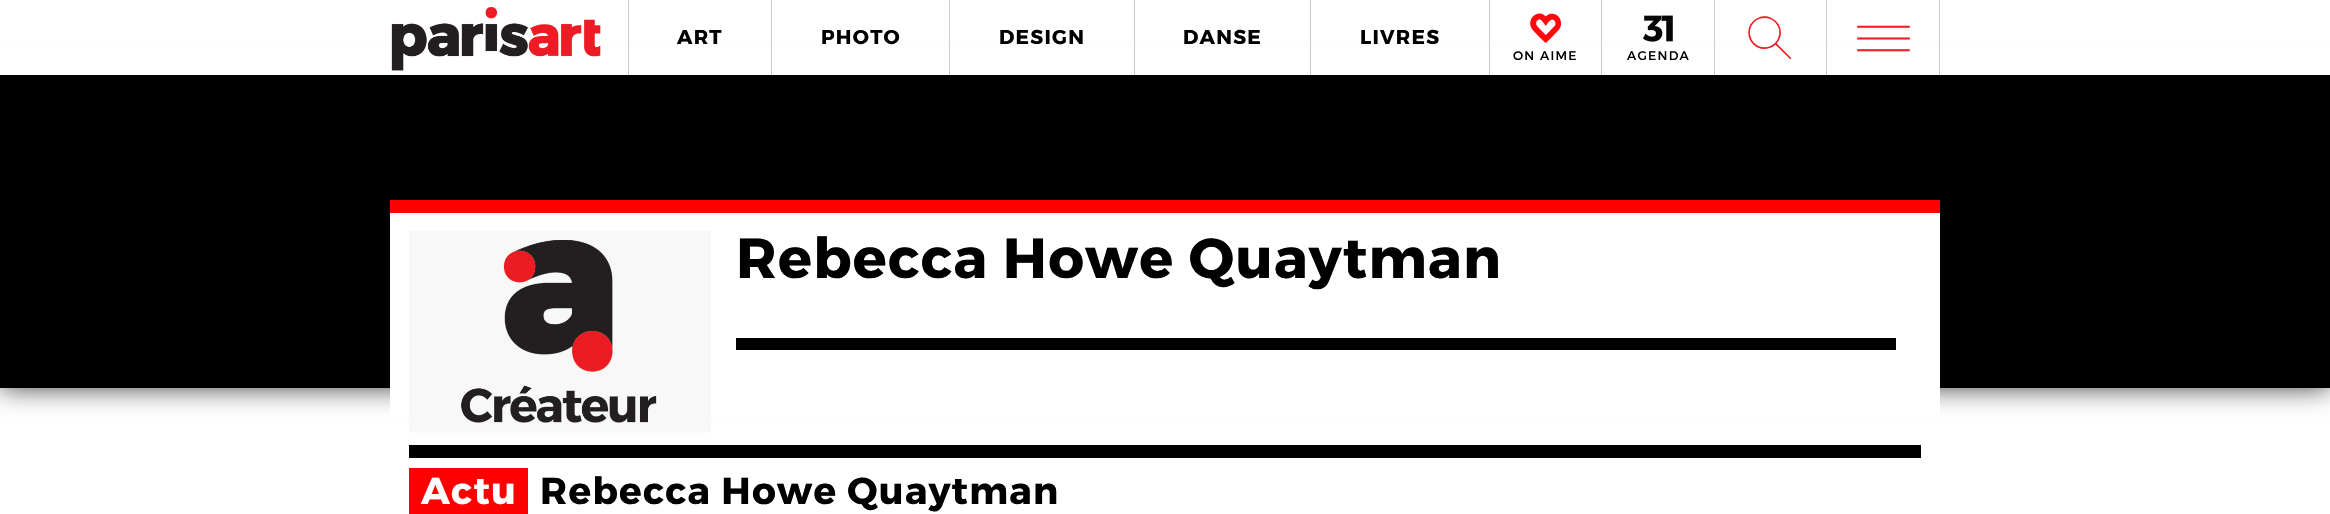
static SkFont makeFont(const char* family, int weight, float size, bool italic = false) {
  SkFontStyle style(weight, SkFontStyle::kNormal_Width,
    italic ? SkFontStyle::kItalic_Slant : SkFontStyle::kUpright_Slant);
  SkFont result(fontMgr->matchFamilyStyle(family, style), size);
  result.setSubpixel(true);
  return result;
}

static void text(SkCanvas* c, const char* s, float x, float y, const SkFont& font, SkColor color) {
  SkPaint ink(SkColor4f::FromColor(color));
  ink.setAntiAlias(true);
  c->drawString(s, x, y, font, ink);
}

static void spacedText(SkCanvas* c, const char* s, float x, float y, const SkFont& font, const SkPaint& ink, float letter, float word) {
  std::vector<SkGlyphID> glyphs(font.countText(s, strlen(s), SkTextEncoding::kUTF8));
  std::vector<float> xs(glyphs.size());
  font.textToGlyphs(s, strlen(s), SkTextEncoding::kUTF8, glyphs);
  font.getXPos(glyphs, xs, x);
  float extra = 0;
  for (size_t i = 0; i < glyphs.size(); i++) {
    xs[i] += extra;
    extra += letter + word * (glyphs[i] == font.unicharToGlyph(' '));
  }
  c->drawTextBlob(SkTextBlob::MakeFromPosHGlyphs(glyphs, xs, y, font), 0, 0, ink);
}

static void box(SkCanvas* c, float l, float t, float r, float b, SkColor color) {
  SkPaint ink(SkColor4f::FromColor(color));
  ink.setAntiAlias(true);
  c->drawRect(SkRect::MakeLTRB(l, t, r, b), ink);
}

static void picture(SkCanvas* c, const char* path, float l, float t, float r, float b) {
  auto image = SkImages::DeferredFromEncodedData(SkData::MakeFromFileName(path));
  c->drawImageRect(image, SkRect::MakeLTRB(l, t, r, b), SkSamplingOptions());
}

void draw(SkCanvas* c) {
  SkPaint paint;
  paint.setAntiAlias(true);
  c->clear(0xffffffff);
  paint.setColor(0xbf000000);
  paint.setMaskFilter(SkMaskFilter::MakeBlur(kNormal_SkBlurStyle, 12.5f));
  c->drawRect(SkRect::MakeLTRB(0, 75, 2330, 388), paint);
  paint.setMaskFilter(nullptr);
  box(c, 0, 47, 2330, 75, 0xffffffff);
  picture(c, "img_01.png", 391, 7, 601, 71);
  box(c, 771, 0, 772, 75, 0xffcccccc);
  box(c, 628, 0, 629, 75, 0xffcccccc);
  SkFont face1 = makeFont("Montserrat", 700, 20);
  paint.setColor(0xff000000);
  spacedText(c, "ART", 677, 44, face1, paint, 1.25f, 0);
  box(c, 949, 0, 950, 75, 0xffcccccc);
  spacedText(c, "PHOTO", 821, 44, face1, paint, 1.25f, 0);
  box(c, 1134, 0, 1135, 75, 0xffcccccc);
  spacedText(c, "DESIGN", 999, 44, face1, paint, 1.25f, 0);
  box(c, 1310, 0, 1311, 75, 0xffcccccc);
  spacedText(c, "DANSE", 1183, 44, face1, paint, 1.25f, 0);
  box(c, 1489, 0, 1490, 75, 0xffcccccc);
  spacedText(c, "LIVRES", 1360, 44, face1, paint, 1.25f, 0);
  box(c, 1826, 0, 1827, 75, 0xffcccccc);
  SkFont face2 = makeFont("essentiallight", 300, 62);
  paint.setColor(0xffec2227);
  spacedText(c, "W", 1739, 69, face2, paint, 1.25f, 0);
  box(c, 1939, 0, 1940, 75, 0xffcccccc);
  SkFont face3 = makeFont("essentiallight", 300, 81);
  text(c, "m", 1843, 79, face3, 0xffec2227);
  box(c, 1601, 0, 1602, 75, 0xffcccccc);
  picture(c, "img_02.png", 1530, 13, 1562, 43);
  SkFont face4 = makeFont("Montserrat", 400, 12.5f);
  paint.setColor(0xff000000);
  spacedText(c, "ON AIME", 1513, 60, face4, paint, 1.25f, 0);
  box(c, 1714, 0, 1715, 75, 0xffcccccc);
  picture(c, "img_03.png", 1643, 15, 1673, 42);
  spacedText(c, "AGENDA", 1627, 60, face4, paint, 1.25f, 0);
  box(c, 0, 75, 2330, 388, 0xff000000);
  box(c, 390, 213, 1940, 416, 0xffffffff);
  box(c, 390, 200, 1940, 213, 0xffff0000);
  picture(c, "img_04.png", 409, 231, 711, 433);
  SkFont face5 = makeFont("Montserrat", 700, 56.25f);
  spacedText(c, "Rebecca Howe Quaytman", 736, 278, face5, paint, 1.25f, 0);
  box(c, 736, 338, 1896, 350, 0xff000000);
  box(c, 409, 445, 1921, 458, 0xff000000);
  box(c, 409, 468, 528, 514, 0xffff0000);
  SkFont face6 = makeFont("Montserrat", 700, 37.5f);
  paint.setColor(0xffffffff);
  spacedText(c, "Actu", 421, 504, face6, paint, 1.25f, 0);
  paint.setColor(0xff000000);
  spacedText(c, "Rebecca Howe Quaytman", 540, 504, face6, paint, 1.25f, 0);
}
